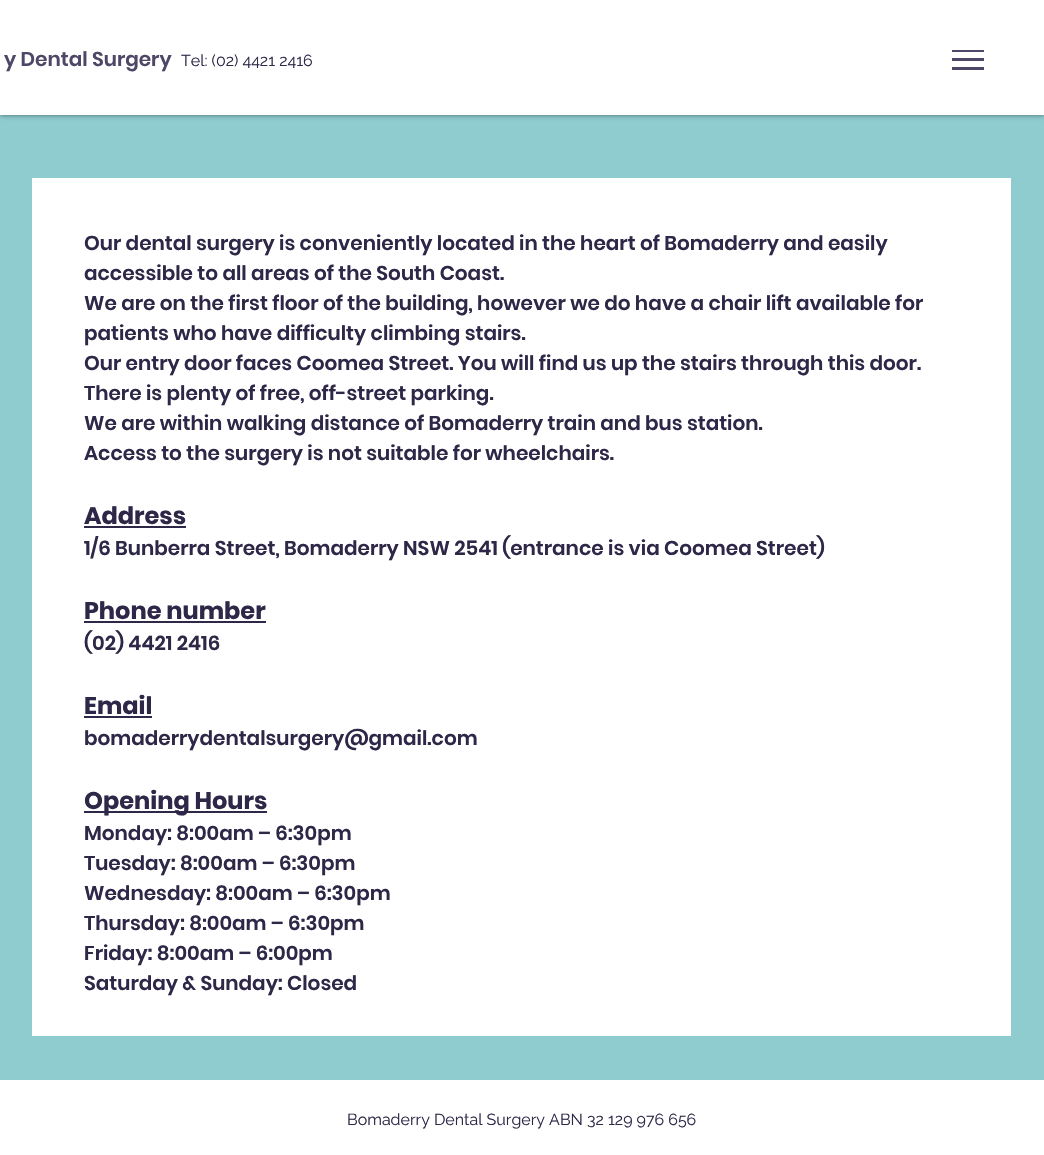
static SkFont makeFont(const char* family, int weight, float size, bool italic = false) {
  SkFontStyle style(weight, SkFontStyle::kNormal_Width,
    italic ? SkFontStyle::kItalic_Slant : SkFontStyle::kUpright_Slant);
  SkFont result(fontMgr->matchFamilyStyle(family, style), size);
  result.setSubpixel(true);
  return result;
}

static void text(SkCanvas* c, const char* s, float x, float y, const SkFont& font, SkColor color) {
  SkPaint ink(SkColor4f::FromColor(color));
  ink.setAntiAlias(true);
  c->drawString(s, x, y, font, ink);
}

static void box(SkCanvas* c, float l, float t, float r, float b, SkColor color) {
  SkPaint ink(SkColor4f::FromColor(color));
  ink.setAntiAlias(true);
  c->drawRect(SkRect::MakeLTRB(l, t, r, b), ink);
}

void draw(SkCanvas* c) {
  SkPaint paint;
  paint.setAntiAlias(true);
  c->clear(0xffffffff);
  box(c, 0, 115, 1044, 1080, 0xff8fcccf);
  paint.setColor(0x80000000);
  paint.setMaskFilter(SkMaskFilter::MakeBlur(kNormal_SkBlurStyle, 2.5f));
  c->drawRect(SkRect::MakeLTRB(0, 0, 1044, 115), paint);
  paint.setMaskFilter(nullptr);
  box(c, 0, 0, 1044, 115, 0xffffffff);
  SkFont face1 = makeFont("Poppins", 600, 20);
  text(c, "y Dental Surgery", 4, 66, face1, 0xff4f4768);
  SkFont face2 = makeFont("Raleway", 400, 16);
  text(c, "Tel: (02) 4421 2416", 181, 66, face2, 0xff2e2747);
  box(c, 952, 67, 984, 70, 0xff4f4768);
  box(c, 952, 50, 984, 52, 0xff4f4768);
  box(c, 952, 58, 984, 61, 0xff4f4768);
  box(c, 32, 178, 1011, 1036, 0xffffffff);
  text(c, "Our dental surgery is conveniently located in the heart of Bomaderry and easily", 84, 250, face1, 0xff2e2747);
  text(c, "accessible to all areas of the South Coast.", 84, 280, face1, 0xff2e2747);
  text(c, "We are on the first floor of the building, however we do have a chair lift available for", 84, 310, face1, 0xff2e2747);
  text(c, "patients who have difficulty climbing stairs.", 84, 340, face1, 0xff2e2747);
  text(c, "Our entry door faces Coomea Street. You will find us up the stairs through this door.", 84, 370, face1, 0xff2e2747);
  text(c, "There is plenty of free, off-street parking.", 84, 400, face1, 0xff2e2747);
  text(c, "We are within walking distance of Bomaderry train and bus station.", 84, 430, face1, 0xff2e2747);
  text(c, "Access to the surgery is not suitable for wheelchairs.", 84, 460, face1, 0xff2e2747);
  SkFont face3 = makeFont("Poppins", 700, 24);
  text(c, "Address", 84, 524, face3, 0xff2e2747);
  box(c, 84, 526, 186, 528, 0xff2e2747);
  text(c, "1/6 Bunberra Street, Bomaderry NSW 2541 (entrance is via Coomea Street)", 84, 555, face1, 0xff2e2747);
  text(c, "Phone number", 84, 619, face3, 0xff2e2747);
  box(c, 84, 621, 266, 623, 0xff2e2747);
  text(c, "(02) 4421 2416", 84, 650, face1, 0xff2e2747);
  text(c, "Email", 84, 714, face3, 0xff2e2747);
  box(c, 84, 716, 152, 718, 0xff2e2747);
  text(c, "bomaderrydentalsurgery@gmail.com", 84, 745, face1, 0xff2e2747);
  box(c, 84, 811, 267, 813, 0xff2e2747);
  text(c, "Opening Hours", 84, 809, face3, 0xff2e2747);
  text(c, "Monday: 8:00am – 6:30pm", 84, 840, face1, 0xff2e2747);
  text(c, "Tuesday: 8:00am – 6:30pm", 84, 870, face1, 0xff2e2747);
  text(c, "Wednesday: 8:00am – 6:30pm", 84, 900, face1, 0xff2e2747);
  text(c, "Thursday: 8:00am – 6:30pm", 84, 930, face1, 0xff2e2747);
  text(c, "Friday: 8:00am – 6:00pm", 84, 960, face1, 0xff2e2747);
  text(c, "Saturday & Sunday: Closed", 84, 990, face1, 0xff2e2747);
  text(c, "Bomaderry Dental Surgery ABN 32 129 976 656", 347, 1125, face2, 0xff2e2747);
}
